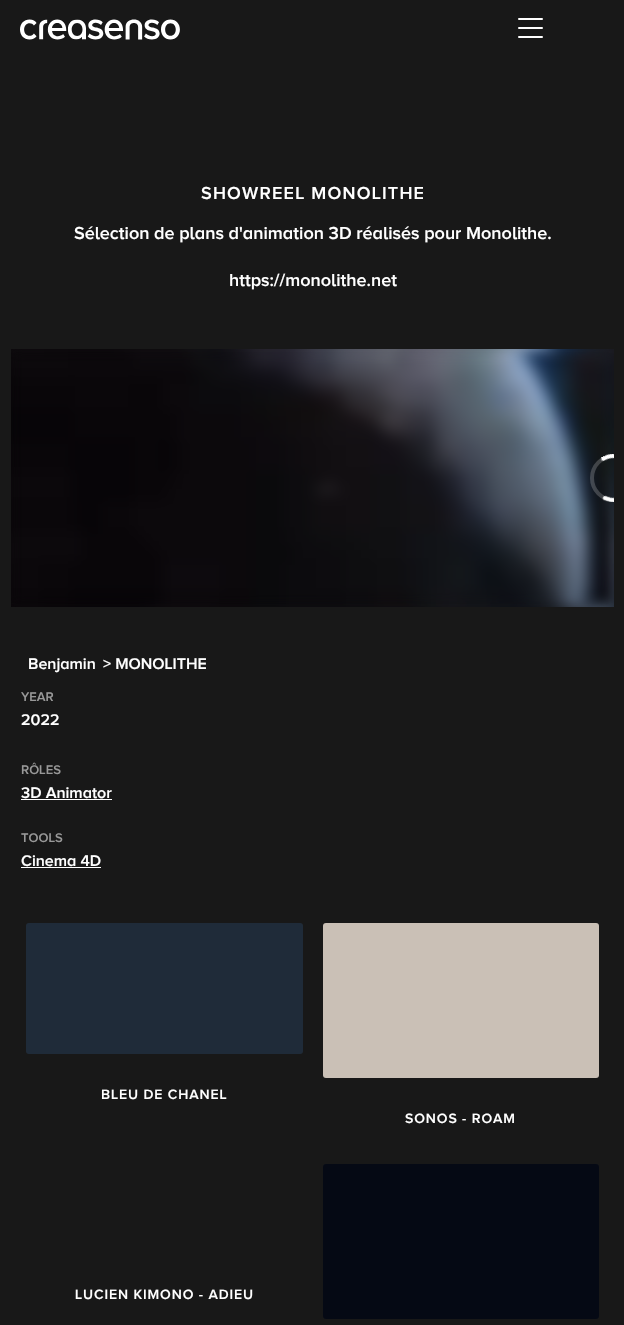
static SkFont makeFont(const char* family, int weight, float size, bool italic = false) {
  SkFontStyle style(weight, SkFontStyle::kNormal_Width,
    italic ? SkFontStyle::kItalic_Slant : SkFontStyle::kUpright_Slant);
  SkFont result(fontMgr->matchFamilyStyle(family, style), size);
  result.setSubpixel(true);
  return result;
}

static void text(SkCanvas* c, const char* s, float x, float y, const SkFont& font, SkColor color) {
  SkPaint ink(SkColor4f::FromColor(color));
  ink.setAntiAlias(true);
  c->drawString(s, x, y, font, ink);
}

static void spacedText(SkCanvas* c, const char* s, float x, float y, const SkFont& font, const SkPaint& ink, float letter, float word) {
  std::vector<SkGlyphID> glyphs(font.countText(s, strlen(s), SkTextEncoding::kUTF8));
  std::vector<float> xs(glyphs.size());
  font.textToGlyphs(s, strlen(s), SkTextEncoding::kUTF8, glyphs);
  font.getXPos(glyphs, xs, x);
  float extra = 0;
  for (size_t i = 0; i < glyphs.size(); i++) {
    xs[i] += extra;
    extra += letter + word * (glyphs[i] == font.unicharToGlyph(' '));
  }
  c->drawTextBlob(SkTextBlob::MakeFromPosHGlyphs(glyphs, xs, y, font), 0, 0, ink);
}

static void box(SkCanvas* c, float l, float t, float r, float b, SkColor color) {
  SkPaint ink(SkColor4f::FromColor(color));
  ink.setAntiAlias(true);
  c->drawRect(SkRect::MakeLTRB(l, t, r, b), ink);
}

static void roundBox(SkCanvas* c, float l, float t, float r, float b, float radius, SkColor color) {
  SkPaint ink(SkColor4f::FromColor(color));
  ink.setAntiAlias(true);
  c->drawRoundRect(SkRect::MakeLTRB(l, t, r, b), radius, radius, ink);
}

static void picture(SkCanvas* c, const char* path, float l, float t, float r, float b) {
  auto image = SkImages::DeferredFromEncodedData(SkData::MakeFromFileName(path));
  c->drawImageRect(image, SkRect::MakeLTRB(l, t, r, b), SkSamplingOptions());
}

void draw(SkCanvas* c) {
  SkPaint paint;
  paint.setAntiAlias(true);
  c->clear(0xff181818);
  picture(c, "img_01.png", 20, 19, 180, 40);
  roundBox(c, 518, 18, 543, 20, 1, 0xffffffff);
  roundBox(c, 518, 27, 543, 29, 1, 0xffffffff);
  roundBox(c, 518, 36, 543, 38, 1, 0xffffffff);
  SkFont face1 = makeFont("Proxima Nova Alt", 600, 18);
  paint.setColor(0xffffffff);
  spacedText(c, "SHOWREEL MONOLITHE", 201, 199, face1, paint, 1.2f, 0);
  text(c, "Sélection de plans d'animation 3D réalisés pour Monolithe.", 74, 239, face1, 0xffffffff);
  text(c, "https://monolithe.net", 229, 286, face1, 0xffffffff);
  picture(c, "img_02.png", 11, 349, 614, 607);
  SkFont face2 = makeFont("Proxima Nova Alt", 600, 16);
  text(c, "Benjamin", 28, 669, face2, 0xffffffff);
  text(c, "> MONOLITHE", 103, 669, face2, 0xffffffff);
  SkFont face3 = makeFont("Proxima Nova Alt", 600, 13);
  text(c, "YEAR", 21, 701, face3, 0xff989898);
  text(c, "2022", 21, 725, face2, 0xffffffff);
  text(c, "RÔLES", 21, 774, face3, 0xff989898);
  text(c, "3D Animator", 21, 798, face2, 0xffffffff);
  box(c, 21, 799, 112, 800, 0xffffffff);
  text(c, "TOOLS", 21, 842, face3, 0xff989898);
  text(c, "Cinema 4D", 21, 866, face2, 0xffffffff);
  box(c, 21, 867, 101, 868, 0xffffffff);
  roundBox(c, 26, 923, 303, 1054, 3, 0xff1f2b39);
  SkFont face4 = makeFont("Proxima Nova Alt", 600, 14);
  spacedText(c, "BLEU DE CHANEL", 101, 1099, face4, paint, 0.9f, 0);
  roundBox(c, 323, 923, 599, 1078, 3, 0xffcac0b6);
  spacedText(c, "SONOS - ROAM", 405, 1123, face4, paint, 0.9f, 0);
  spacedText(c, "LUCIEN KIMONO - ADIEU", 75, 1299, face4, paint, 0.9f, 0);
  roundBox(c, 323, 1164, 599, 1319, 3, 0xff050914);
}
